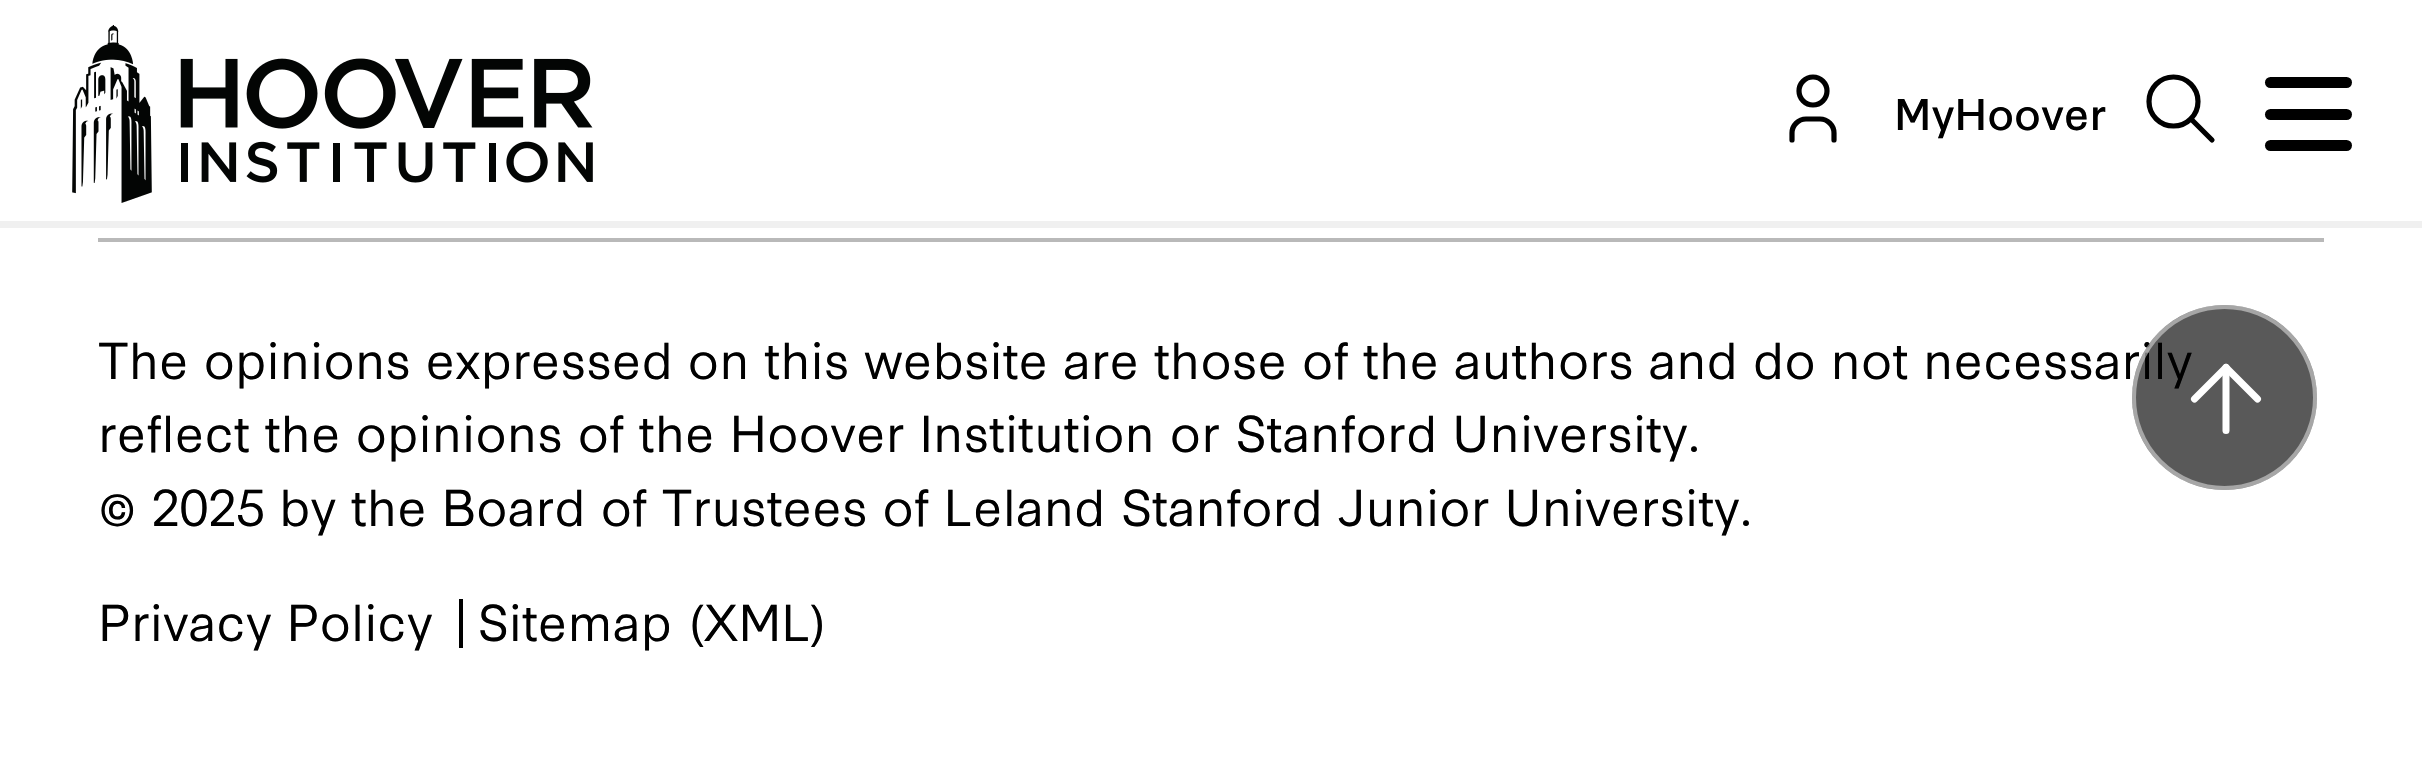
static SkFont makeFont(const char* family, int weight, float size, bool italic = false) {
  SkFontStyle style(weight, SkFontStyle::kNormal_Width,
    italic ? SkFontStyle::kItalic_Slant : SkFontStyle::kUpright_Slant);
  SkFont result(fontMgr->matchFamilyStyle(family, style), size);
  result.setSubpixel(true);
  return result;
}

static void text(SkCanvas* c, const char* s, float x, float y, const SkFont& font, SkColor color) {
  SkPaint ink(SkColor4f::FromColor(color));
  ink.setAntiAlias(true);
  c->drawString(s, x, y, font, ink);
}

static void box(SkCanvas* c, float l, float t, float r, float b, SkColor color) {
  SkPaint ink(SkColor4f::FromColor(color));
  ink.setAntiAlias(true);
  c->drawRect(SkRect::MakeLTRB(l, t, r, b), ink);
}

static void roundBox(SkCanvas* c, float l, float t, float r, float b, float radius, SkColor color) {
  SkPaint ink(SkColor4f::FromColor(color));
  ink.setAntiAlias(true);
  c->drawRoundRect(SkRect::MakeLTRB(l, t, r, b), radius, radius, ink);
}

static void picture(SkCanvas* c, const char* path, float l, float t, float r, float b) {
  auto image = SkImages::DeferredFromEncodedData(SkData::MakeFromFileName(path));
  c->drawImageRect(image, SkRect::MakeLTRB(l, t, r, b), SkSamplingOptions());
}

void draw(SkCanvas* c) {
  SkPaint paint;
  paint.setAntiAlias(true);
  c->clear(0xffffffff);
  picture(c, "img_01.png", 72, 25, 593, 203);
  paint.setStyle(SkPaint::kStroke_Style);
  paint.setStrokeWidth(5.2f);
  paint.setColor(0xff000000);
  c->drawCircle(1813, 91, 14, paint);
  paint.setStrokeCap(SkPaint::kRound_Cap);
  paint.setStrokeJoin(SkPaint::kRound_Join);
  c->drawPath(SkPathBuilder().moveTo(1792, 140).lineTo(1792, 133).cubicTo(1792, 125.5f, 1798.5f, 119, 1806, 119).lineTo(1820, 119).cubicTo(1827.5f, 119, 1834, 125.5f, 1834, 133).lineTo(1834, 140).detach(), paint);
  SkFont face1 = makeFont("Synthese", 400, 42);
  text(c, "MyHoover", 1894, 130, face1, 0xff000000);
  paint.setStrokeCap(SkPaint::kButt_Cap);
  paint.setStrokeJoin(SkPaint::kMiter_Join);
  c->drawCircle(2173.5f, 101.5f, 24.5f, paint);
  paint.setStrokeCap(SkPaint::kRound_Cap);
  paint.setStrokeJoin(SkPaint::kRound_Join);
  c->drawPath(SkPathBuilder().moveTo(2212, 140).lineTo(2191, 119).detach(), paint);
  roundBox(c, 2265, 77, 2352, 88, 5.5f, 0xff000000);
  roundBox(c, 2265, 109, 2352, 120, 5.5f, 0xff000000);
  roundBox(c, 2265, 140, 2352, 151, 5.5f, 0xff000000);
  box(c, 0, 221, 2422, 228, 0xfff0f0f0);
  box(c, 98, 238, 2324, 242, 0xffb9b9b9);
  SkFont face2 = makeFont("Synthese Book", 400, 49);
  text(c, "The opinions expressed on this website are those of the authors and do not necessarily", 98, 379, face2, 0xff000000);
  text(c, "reflect the opinions of the Hoover Institution or Stanford University.", 98, 452, face2, 0xff000000);
  text(c, "© 2025", 98, 526, face2, 0xff000000);
  text(c, "by the Board of Trustees of Leland Stanford Junior University.", 279, 526, face2, 0xff000000);
  text(c, "Privacy Policy", 98, 641, face2, 0xff000000);
  box(c, 459, 599, 463, 648, 0xff000000);
  text(c, "Sitemap", 477, 641, face2, 0xff000000);
  text(c, "(XML)", 689, 641, face2, 0xff000000);
  paint.setStyle(SkPaint::kFill_Style);
  paint.setColor(0xa6000000);
  c->drawCircle(2224.5f, 397.5f, 92.5f, paint);
  paint.setStyle(SkPaint::kStroke_Style);
  paint.setStrokeWidth(7);
  paint.setColor(0xffffffff);
  c->drawPath(SkPathBuilder().moveTo(2226, 367.5f).lineTo(2194.5f, 399).detach(), paint);
  c->drawPath(SkPathBuilder().moveTo(2226, 367.5f).lineTo(2226, 430.5f).detach(), paint);
  c->drawPath(SkPathBuilder().moveTo(2257.5f, 399).lineTo(2226, 367.5f).detach(), paint);
  paint.setStrokeWidth(4);
  paint.setStrokeCap(SkPaint::kButt_Cap);
  paint.setStrokeJoin(SkPaint::kMiter_Join);
  paint.setColor(0x80f2f2f2);
  c->drawCircle(2224.5f, 397.5f, 90.5f, paint);
}
